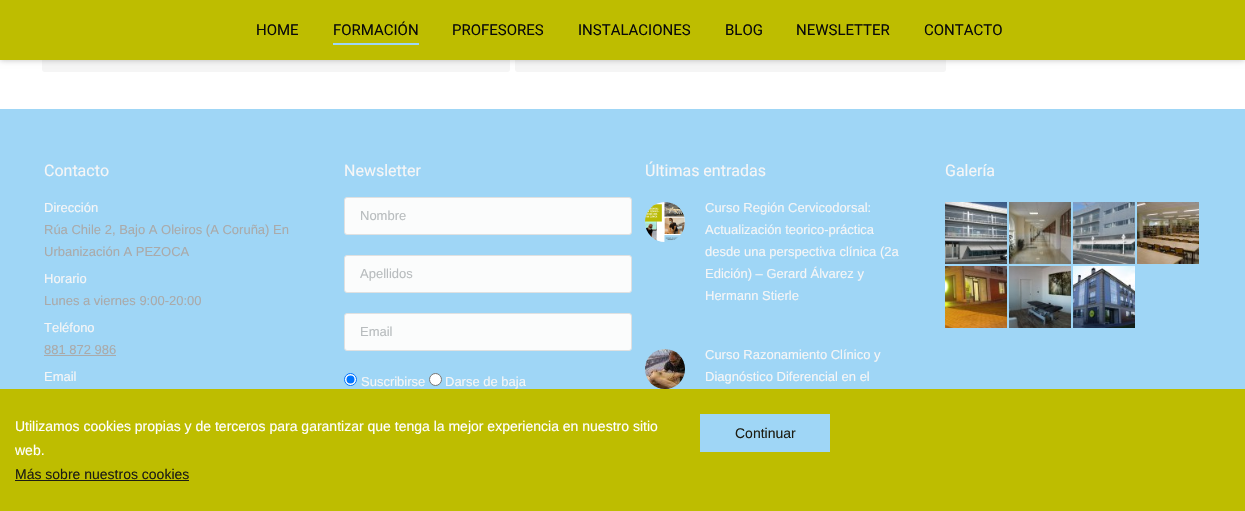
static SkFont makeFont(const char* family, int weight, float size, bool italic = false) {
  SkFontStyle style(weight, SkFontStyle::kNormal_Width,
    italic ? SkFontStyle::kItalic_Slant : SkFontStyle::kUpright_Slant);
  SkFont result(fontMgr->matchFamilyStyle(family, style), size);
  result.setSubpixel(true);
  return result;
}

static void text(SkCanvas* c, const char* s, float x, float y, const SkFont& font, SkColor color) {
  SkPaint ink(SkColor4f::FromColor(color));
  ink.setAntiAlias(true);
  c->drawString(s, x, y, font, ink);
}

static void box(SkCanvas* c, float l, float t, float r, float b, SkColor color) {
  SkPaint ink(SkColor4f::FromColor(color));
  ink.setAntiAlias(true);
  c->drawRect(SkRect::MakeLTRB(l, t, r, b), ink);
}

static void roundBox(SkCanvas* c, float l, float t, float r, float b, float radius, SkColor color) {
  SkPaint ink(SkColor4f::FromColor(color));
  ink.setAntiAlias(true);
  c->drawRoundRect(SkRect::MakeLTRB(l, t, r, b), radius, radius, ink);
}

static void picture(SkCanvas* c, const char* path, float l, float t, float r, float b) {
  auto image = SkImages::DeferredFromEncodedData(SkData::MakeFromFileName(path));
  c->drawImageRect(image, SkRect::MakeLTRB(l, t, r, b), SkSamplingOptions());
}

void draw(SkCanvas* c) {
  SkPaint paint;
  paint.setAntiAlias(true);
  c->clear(0xffffffff);
  roundBox(c, 42, 30, 510, 72, 3, 0xfff5f5f5);
  roundBox(c, 515, 30, 946, 72, 3, 0xfff5f5f5);
  paint.setColor(0x40000000);
  paint.setMaskFilter(SkMaskFilter::MakeBlur(kNormal_SkBlurStyle, 3));
  c->drawRect(SkRect::MakeLTRB(0, 0, 1245, 60), paint);
  paint.setMaskFilter(nullptr);
  box(c, 0, 0, 1245, 60, 0xffbebd00);
  SkFont face1 = makeFont("Roboto", 400, 15);
  text(c, "HOME", 256, 35, face1, 0xff0a0a0a);
  text(c, "FORMACIÓN", 333, 35, face1, 0xff0a0a0a);
  box(c, 333, 43, 419, 45, 0xff9fd6f6);
  text(c, "PROFESORES", 452, 35, face1, 0xff0a0a0a);
  text(c, "INSTALACIONES", 578, 35, face1, 0xff0a0a0a);
  text(c, "BLOG", 725, 35, face1, 0xff0a0a0a);
  text(c, "NEWSLETTER", 796, 35, face1, 0xff0a0a0a);
  text(c, "CONTACTO", 924, 35, face1, 0xff0a0a0a);
  box(c, 0, 109, 1245, 389, 0xff9fd6f6);
  SkFont face2 = makeFont("Roboto", 400, 16);
  text(c, "Contacto", 44, 176, face2, 0xfff6f6f6);
  SkFont face3 = makeFont("Liberation Sans", 400, 13);
  text(c, "Dirección", 44, 212, face3, 0xfff6f6f6);
  text(c, "Rúa Chile 2, Bajo A Oleiros (A Coruña) En", 44, 234, face3, 0xffaaaaaa);
  text(c, "Urbanización A PEZOCA", 44, 256, face3, 0xffaaaaaa);
  text(c, "Horario", 44, 283, face3, 0xfff6f6f6);
  text(c, "Lunes a viernes 9:00-20:00", 44, 305, face3, 0xffaaaaaa);
  text(c, "Teléfono", 44, 332, face3, 0xfff6f6f6);
  text(c, "881 872 986", 44, 354, face3, 0xffaaaaaa);
  box(c, 44, 355, 116, 356, 0xffaaaaaa);
  text(c, "Email", 44, 381, face3, 0xfff6f6f6);
  text(c, "Newsletter", 344, 176, face2, 0xfff6f6f6);
  paint.setColor(0xfffbfcfc);
  c->drawRoundRect(SkRect::MakeLTRB(344.5f, 197.5f, 631.5f, 234.5f), 2.5f, 2.5f, paint);
  paint.setStyle(SkPaint::kStroke_Style);
  paint.setStrokeWidth(1);
  paint.setColor(0xffe0e1e1);
  c->drawRoundRect(SkRect::MakeLTRB(344.5f, 197.5f, 631.5f, 234.5f), 2.5f, 2.5f, paint);
  text(c, "Nombre", 360, 220, face3, 0xffb8bcbe);
  paint.setStyle(SkPaint::kFill_Style);
  paint.setColor(0xfffbfcfc);
  c->drawRoundRect(SkRect::MakeLTRB(344.5f, 255.5f, 631.5f, 292.5f), 2.5f, 2.5f, paint);
  paint.setStyle(SkPaint::kStroke_Style);
  paint.setColor(0xffe0e1e1);
  c->drawRoundRect(SkRect::MakeLTRB(344.5f, 255.5f, 631.5f, 292.5f), 2.5f, 2.5f, paint);
  text(c, "Apellidos", 360, 278, face3, 0xffb8bcbe);
  paint.setStyle(SkPaint::kFill_Style);
  paint.setColor(0xfffbfcfc);
  c->drawRoundRect(SkRect::MakeLTRB(344.5f, 313.5f, 631.5f, 350.5f), 2.5f, 2.5f, paint);
  paint.setStyle(SkPaint::kStroke_Style);
  paint.setColor(0xffe0e1e1);
  c->drawRoundRect(SkRect::MakeLTRB(344.5f, 313.5f, 631.5f, 350.5f), 2.5f, 2.5f, paint);
  text(c, "Email", 360, 336, face3, 0xffb8bcbe);
  paint.setStyle(SkPaint::kFill_Style);
  paint.setColor(0xffffffff);
  c->drawCircle(350.5f, 379.5f, 6, paint);
  paint.setStyle(SkPaint::kStroke_Style);
  paint.setColor(0xff0075ff);
  c->drawCircle(350.5f, 379.5f, 6, paint);
  paint.setStyle(SkPaint::kFill_Style);
  c->drawCircle(350.5f, 379.5f, 4, paint);
  text(c, "Suscribirse", 361, 386, face3, 0xfff6f6f6);
  paint.setColor(0xffffffff);
  c->drawCircle(435.5f, 379.5f, 6, paint);
  paint.setStyle(SkPaint::kStroke_Style);
  paint.setColor(0xff767676);
  c->drawCircle(435.5f, 379.5f, 6, paint);
  text(c, "Darse de baja", 445, 386, face3, 0xfff6f6f6);
  text(c, "Últimas entradas", 645, 176, face2, 0xfff6f6f6);
  picture(c, "img_01.png", 645, 202, 685, 242);
  text(c, "Curso Región Cervicodorsal:", 705, 212, face3, 0xfff6f6f6);
  text(c, "Actualización teorico-práctica", 705, 234, face3, 0xfff6f6f6);
  text(c, "desde una perspectiva clínica (2a", 705, 256, face3, 0xfff6f6f6);
  text(c, "Edición) – Gerard Álvarez y", 705, 278, face3, 0xfff6f6f6);
  text(c, "Hermann Stierle", 705, 300, face3, 0xfff6f6f6);
  picture(c, "img_02.png", 645, 349, 685, 389);
  text(c, "Curso Razonamiento Clínico y", 705, 359, face3, 0xfff6f6f6);
  text(c, "Diagnóstico Diferencial en el", 705, 381, face3, 0xfff6f6f6);
  text(c, "Galería", 945, 176, face2, 0xfff6f6f6);
  picture(c, "img_03.png", 945, 202, 1007, 264);
  picture(c, "img_04.png", 1009, 202, 1071, 264);
  picture(c, "img_05.png", 1073, 202, 1135, 264);
  picture(c, "img_06.png", 1137, 202, 1199, 264);
  picture(c, "img_07.png", 945, 266, 1007, 328);
  picture(c, "img_08.png", 1009, 266, 1071, 328);
  picture(c, "img_09.png", 1073, 266, 1135, 328);
  box(c, 0, 389, 1245, 511, 0xffbebd00);
  SkFont face4 = makeFont("Liberation Sans", 400, 14);
  text(c, "Utilizamos cookies propias y de terceros para garantizar que tenga la mejor experiencia en nuestro sitio", 15, 431, face4, 0xffffffff);
  text(c, "web.", 15, 455, face4, 0xffffffff);
  text(c, "Más sobre nuestros cookies", 15, 479, face4, 0xff1d1d13);
  box(c, 15, 480, 189, 481, 0xff1d1d13);
  box(c, 700, 414, 830, 452, 0xff9fd6f6);
  text(c, "Continuar", 735, 438, face4, 0xff1d1d13);
}
